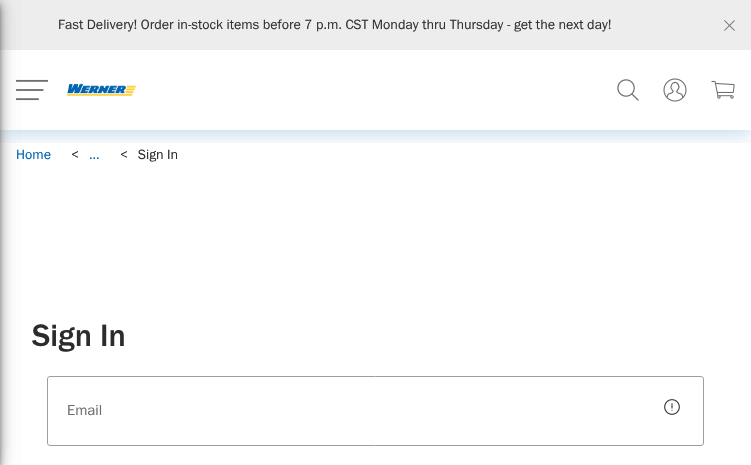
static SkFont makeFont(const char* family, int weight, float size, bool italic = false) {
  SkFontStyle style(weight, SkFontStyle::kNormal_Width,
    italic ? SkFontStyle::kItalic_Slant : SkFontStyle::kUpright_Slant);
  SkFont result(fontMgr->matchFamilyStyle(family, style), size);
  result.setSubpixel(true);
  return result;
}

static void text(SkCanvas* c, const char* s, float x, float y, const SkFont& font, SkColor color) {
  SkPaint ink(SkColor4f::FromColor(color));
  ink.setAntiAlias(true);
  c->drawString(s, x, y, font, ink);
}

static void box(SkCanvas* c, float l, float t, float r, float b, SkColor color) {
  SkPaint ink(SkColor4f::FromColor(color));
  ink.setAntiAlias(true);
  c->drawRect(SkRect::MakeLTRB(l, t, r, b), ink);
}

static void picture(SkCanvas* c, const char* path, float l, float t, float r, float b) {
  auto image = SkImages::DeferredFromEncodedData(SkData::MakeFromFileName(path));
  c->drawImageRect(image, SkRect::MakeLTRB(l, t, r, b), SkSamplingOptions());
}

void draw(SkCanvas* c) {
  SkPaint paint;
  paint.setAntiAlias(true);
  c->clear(0xffffffff);
  c->save();
  c->clipRect(SkRect::MakeLTRB(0, 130, 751, 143));
  paint.setColor(0x260064b0);
  paint.setMaskFilter(SkMaskFilter::MakeBlur(kNormal_SkBlurStyle, 10));
  c->drawRect(SkRect::MakeLTRB(0, 2, 751, 132), paint);
  paint.setMaskFilter(nullptr);
  paint.setMaskFilter(SkMaskFilter::MakeBlur(kNormal_SkBlurStyle, 10));
  c->drawRect(SkRect::MakeLTRB(0, 2, 751, 132), paint);
  paint.setMaskFilter(nullptr);
  c->restore();
  picture(c, "img_01.png", 16, 79, 48, 101);
  box(c, 0, 0, 751, 50, 0xffededed);
  paint.setColor(0x1f000000);
  paint.setMaskFilter(SkMaskFilter::MakeBlur(kNormal_SkBlurStyle, 9));
  c->drawRect(SkRect::MakeLTRB(-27, 1, 0, 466), paint);
  paint.setMaskFilter(nullptr);
  paint.setColor(0x24000000);
  paint.setMaskFilter(SkMaskFilter::MakeBlur(kNormal_SkBlurStyle, 5));
  c->drawRect(SkRect::MakeLTRB(-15, 6, 0, 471), paint);
  paint.setMaskFilter(nullptr);
  paint.setColor(0x33000000);
  paint.setMaskFilter(SkMaskFilter::MakeBlur(kNormal_SkBlurStyle, 2.5f));
  c->drawRect(SkRect::MakeLTRB(-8, 4, -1, 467), paint);
  paint.setMaskFilter(nullptr);
  paint.setColor(0x1f000000);
  paint.setMaskFilter(SkMaskFilter::MakeBlur(kNormal_SkBlurStyle, 9));
  c->drawRect(SkRect::MakeLTRB(-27, 1, 0, 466), paint);
  paint.setMaskFilter(nullptr);
  paint.setColor(0x24000000);
  paint.setMaskFilter(SkMaskFilter::MakeBlur(kNormal_SkBlurStyle, 5));
  c->drawRect(SkRect::MakeLTRB(-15, 6, 0, 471), paint);
  paint.setMaskFilter(nullptr);
  paint.setColor(0x33000000);
  paint.setMaskFilter(SkMaskFilter::MakeBlur(kNormal_SkBlurStyle, 2.5f));
  c->drawRect(SkRect::MakeLTRB(-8, 4, -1, 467), paint);
  paint.setMaskFilter(nullptr);
  picture(c, "img_02.png", 67, 83, 137, 96);
  picture(c, "img_03.png", 617, 79, 639, 101);
  picture(c, "img_04.png", 663, 78, 687, 102);
  picture(c, "img_05.png", 711, 80, 735, 99);
  SkFont face1 = makeFont("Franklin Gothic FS", 400, 14);
  text(c, "Fast Delivery! Order in-stock items before 7 p.m. CST Monday thru Thursday - get the next day!", 58, 29, face1, 0xff333333);
  picture(c, "img_06.png", 724, 20, 735, 31);
  text(c, "Home", 16, 159, face1, 0xff0064b0);
  text(c, "<", 71, 159, face1, 0xff2c2c2c);
  text(c, "...", 89, 159, face1, 0xff0064b0);
  text(c, "<", 120, 159, face1, 0xff2c2c2c);
  text(c, "Sign In", 138, 159, face1, 0xff2c2c2c);
  SkFont face2 = makeFont("Franklin Gothic FS", 500, 32);
  text(c, "Sign In", 32, 346, face2, 0xff2c2c2c);
  paint.setStyle(SkPaint::kStroke_Style);
  paint.setStrokeWidth(1);
  paint.setColor(0xff9aa0a0);
  c->drawRoundRect(SkRect::MakeLTRB(47.5f, 376.5f, 703.5f, 445.5f), 2.5f, 2.5f, paint);
  SkFont face3 = makeFont("Franklin Gothic FS", 400, 15);
  text(c, "Email", 67, 415, face3, 0xff6d6e71);
  picture(c, "img_07.png", 664, 399, 680, 415);
}
